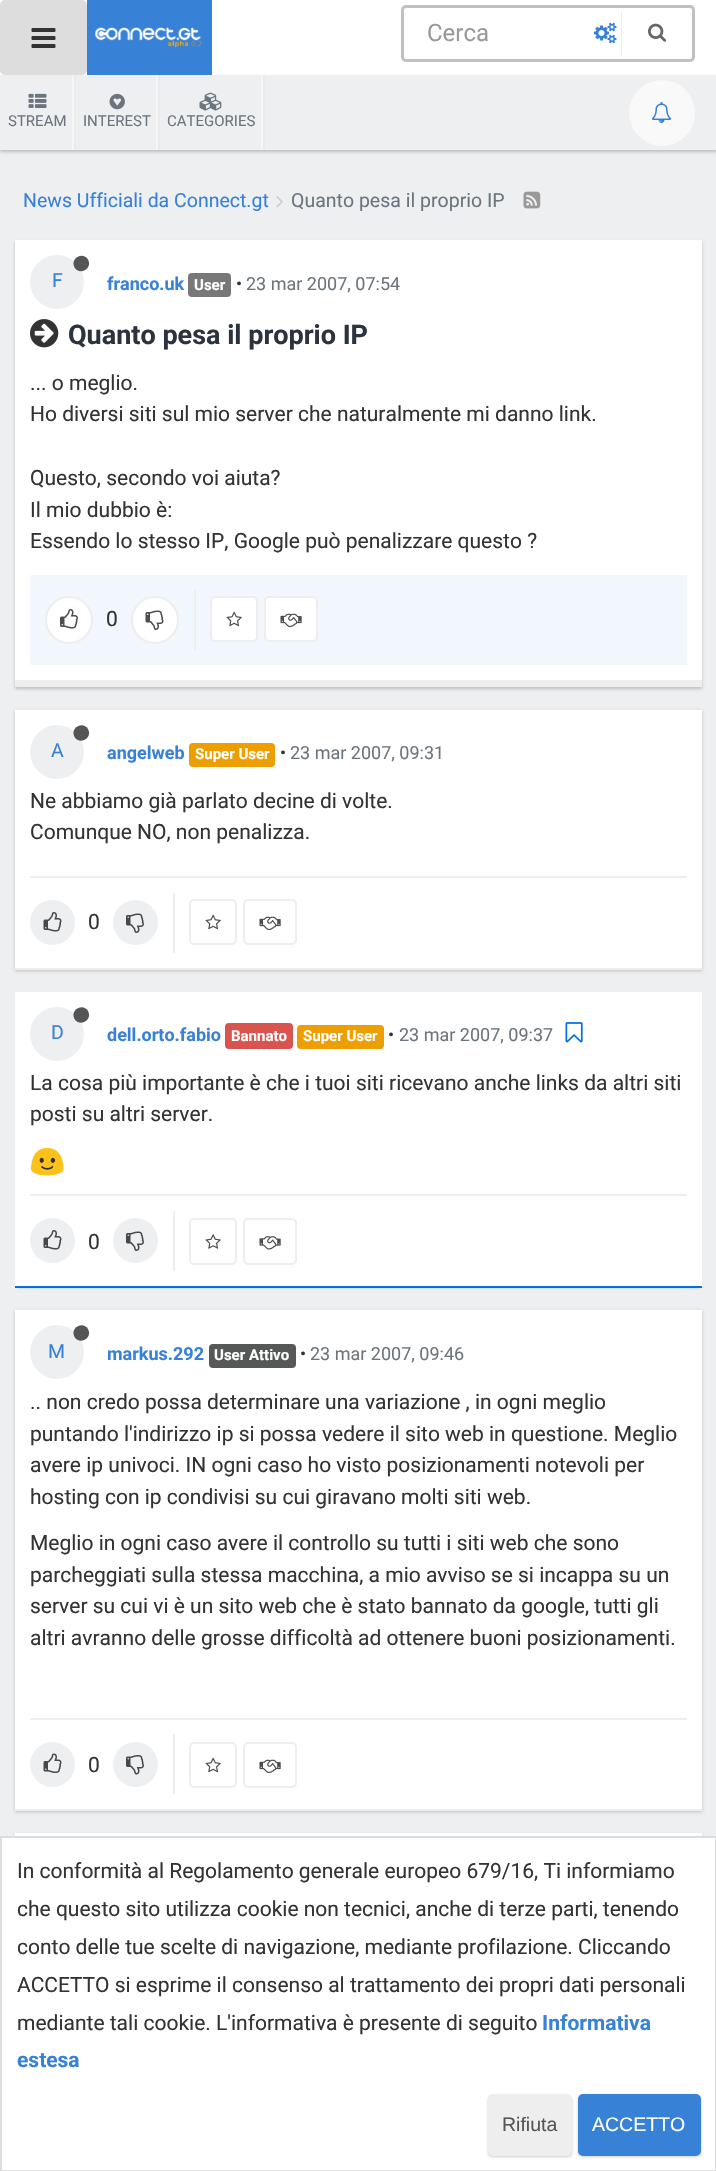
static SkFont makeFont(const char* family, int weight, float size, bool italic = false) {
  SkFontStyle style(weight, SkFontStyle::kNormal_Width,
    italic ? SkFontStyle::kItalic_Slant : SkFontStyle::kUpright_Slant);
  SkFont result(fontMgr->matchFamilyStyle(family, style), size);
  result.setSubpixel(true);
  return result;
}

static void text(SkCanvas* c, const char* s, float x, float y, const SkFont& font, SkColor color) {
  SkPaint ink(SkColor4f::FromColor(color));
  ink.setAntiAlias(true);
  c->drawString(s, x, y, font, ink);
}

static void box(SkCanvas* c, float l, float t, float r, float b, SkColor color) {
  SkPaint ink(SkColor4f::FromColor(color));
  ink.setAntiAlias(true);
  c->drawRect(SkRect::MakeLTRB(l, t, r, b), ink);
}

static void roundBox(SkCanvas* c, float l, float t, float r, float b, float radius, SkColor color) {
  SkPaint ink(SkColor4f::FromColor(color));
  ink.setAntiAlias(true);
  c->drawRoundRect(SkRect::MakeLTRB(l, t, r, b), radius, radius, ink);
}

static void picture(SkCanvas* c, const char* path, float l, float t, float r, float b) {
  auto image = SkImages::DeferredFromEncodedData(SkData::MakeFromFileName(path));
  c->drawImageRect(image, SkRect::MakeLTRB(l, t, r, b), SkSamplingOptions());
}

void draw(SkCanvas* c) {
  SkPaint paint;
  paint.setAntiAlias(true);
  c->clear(0xffeeeff1);
  box(c, 0, 0, 716, 75, 0xffffffff);
  box(c, 0, 150, 716, 152, 0xffeeeeee);
  paint.setColor(0x33000000);
  paint.setMaskFilter(SkMaskFilter::MakeBlur(kNormal_SkBlurStyle, 1.5f));
  c->drawRect(SkRect::MakeLTRB(0, 77, 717, 152), paint);
  paint.setMaskFilter(nullptr);
  roundBox(c, 0, 0, 87, 75, 5, 0xffdddddd);
  picture(c, "img_01.png", 31, 28, 56, 48);
  box(c, 95, 8, 204, 67, 0xff3781d6);
  picture(c, "img_02.png", 95, 27, 202, 48);
  paint.setStyle(SkPaint::kStroke_Style);
  paint.setStrokeWidth(8);
  paint.setColor(0xff3781d6);
  c->drawRect(SkRect::MakeLTRB(91, 4, 208, 71), paint);
  paint.setStrokeWidth(3);
  paint.setColor(0xffbec0c2);
  c->drawRoundRect(SkRect::MakeLTRB(402.5f, 6.5f, 693.5f, 60.5f), 3.5f, 3.5f, paint);
  SkFont face1 = makeFont("Roboto", 400, 24);
  text(c, "Cerca", 427, 41, face1, 0xff999999);
  picture(c, "img_03.png", 594, 22, 617, 44);
  paint.setStyle(SkPaint::kFill_Style);
  paint.setColor(0xffeeeeee);
  c->drawPath(SkPathBuilder().moveTo(621, 56).lineTo(621, 10).lineTo(622, 12).lineTo(622, 54).close().detach(), paint);
  picture(c, "img_04.png", 648, 23, 667, 42);
  box(c, 0, 75, 716, 150, 0xffeeeff1);
  box(c, 72, 75, 74, 150, 0xfff6f6f7);
  box(c, 74, 75, 76, 150, 0xffe9eaec);
  picture(c, "img_05.png", 28, 93, 47, 108);
  SkFont face2 = makeFont("Roboto", 400, 15);
  text(c, "STREAM", 8, 126, face2, 0xff6c757d);
  box(c, 156, 75, 158, 150, 0xfff6f6f7);
  box(c, 158, 75, 160, 150, 0xffe9eaec);
  picture(c, "img_06.png", 109, 93, 125, 110);
  text(c, "INTEREST", 83, 126, face2, 0xff6c757d);
  box(c, 261, 75, 263, 150, 0xfff6f6f7);
  box(c, 263, 75, 265, 150, 0xffe9eaec);
  picture(c, "img_07.png", 199, 92, 222, 111);
  text(c, "CATEGORIES", 167, 126, face2, 0xff6c757d);
  paint.setColor(0xfff9f9f9);
  c->drawCircle(662, 113, 33, paint);
  picture(c, "img_08.png", 651, 102, 672, 123);
  SkFont face3 = makeFont("Roboto", 400, 19.5f);
  text(c, "News Ufficiali da Connect.gt", 23, 207, face3, 0xff3781d6);
  picture(c, "img_09.png", 276, 196, 283, 208);
  text(c, "Quanto pesa il proprio IP", 291, 207, face3, 0xff6c757d);
  picture(c, "img_10.png", 523, 191, 541, 209);
  paint.setColor(0x33000000);
  paint.setMaskFilter(SkMaskFilter::MakeBlur(kNormal_SkBlurStyle, 1.5f));
  c->drawRect(SkRect::MakeLTRB(15, 242, 702, 689), paint);
  paint.setMaskFilter(nullptr);
  box(c, 15, 240, 702, 680, 0xffffffff);
  box(c, 15, 680, 702, 687, 0xffeeeeee);
  paint.setColor(0xffeeeff1);
  c->drawCircle(57, 282, 27, paint);
  paint.setColor(0xff555555);
  c->drawPath(SkPathBuilder().moveTo(88, 259.5f).cubicTo(93, 268.5f, 79.5f, 276, 74.5f, 267.5f).cubicTo(69.5f, 258.5f, 83, 251, 88, 259.5f).close().detach(), paint);
  text(c, "F", 52, 287, face3, 0xff3781d6);
  SkFont face4 = makeFont("Roboto", 700, 18);
  text(c, "franco.uk", 107, 290, face4, 0xff3781d6);
  roundBox(c, 188, 273, 231, 297, 4, 0xff787878);
  SkFont face5 = makeFont("Roboto", 700, 15);
  text(c, "User", 194, 290, face5, 0xffffffff);
  SkFont face6 = makeFont("Roboto", 400, 18);
  text(c, "•", 236, 290, face6, 0xff333333);
  text(c, "23 mar 2007, 07:54", 246, 290, face6, 0xff6c757d);
  picture(c, "img_11.png", 30, 319, 59, 348);
  SkFont face7 = makeFont("Roboto", 700, 27);
  text(c, "Quanto pesa il proprio IP", 68, 344, face7, 0xff2b333e);
  SkFont face8 = makeFont("Roboto", 400, 21);
  text(c, "... o meglio.", 30, 390, face8, 0xff333333);
  text(c, "Ho diversi siti sul mio server che naturalmente mi danno link.", 30, 421, face8, 0xff333333);
  text(c, "Questo, secondo voi aiuta?", 30, 485, face8, 0xff333333);
  text(c, "Il mio dubbio è:", 30, 517, face8, 0xff333333);
  text(c, "Essendo lo stesso IP, Google può penalizzare questo ?", 30, 548, face8, 0xff333333);
  box(c, 30, 575, 687, 665, 0xfff1f7fd);
  box(c, 194, 590, 196, 650, 0xffeeeeee);
  paint.setColor(0xffffffff);
  c->drawCircle(69, 620, 23, paint);
  paint.setStyle(SkPaint::kStroke_Style);
  paint.setStrokeWidth(2);
  paint.setColor(0xffeeeeee);
  c->drawCircle(69, 620, 23, paint);
  picture(c, "img_12.png", 60, 609, 78, 629);
  text(c, "0", 106, 626, face8, 0xff333333);
  paint.setStyle(SkPaint::kFill_Style);
  paint.setColor(0xffffffff);
  c->drawCircle(155, 620, 23, paint);
  paint.setStyle(SkPaint::kStroke_Style);
  paint.setColor(0xffeeeeee);
  c->drawCircle(155, 620, 23, paint);
  picture(c, "img_13.png", 145, 610, 164, 630);
  paint.setStyle(SkPaint::kFill_Style);
  paint.setColor(0xffffffff);
  c->drawRoundRect(SkRect::MakeLTRB(211, 597, 257, 641), 4, 4, paint);
  paint.setStyle(SkPaint::kStroke_Style);
  paint.setColor(0xffeeeeee);
  c->drawRoundRect(SkRect::MakeLTRB(211, 597, 257, 641), 4, 4, paint);
  picture(c, "img_14.png", 226, 611, 242, 627);
  paint.setStyle(SkPaint::kFill_Style);
  paint.setColor(0xffffffff);
  c->drawRoundRect(SkRect::MakeLTRB(265, 597, 317, 641), 4, 4, paint);
  paint.setStyle(SkPaint::kStroke_Style);
  paint.setColor(0xffeeeeee);
  c->drawRoundRect(SkRect::MakeLTRB(265, 597, 317, 641), 4, 4, paint);
  picture(c, "img_15.png", 280, 613, 302, 628);
  paint.setStyle(SkPaint::kFill_Style);
  paint.setColor(0x33000000);
  paint.setMaskFilter(SkMaskFilter::MakeBlur(kNormal_SkBlurStyle, 1.5f));
  c->drawRect(SkRect::MakeLTRB(15, 711, 702, 971), paint);
  paint.setMaskFilter(nullptr);
  box(c, 15, 710, 702, 968, 0xffffffff);
  box(c, 15, 968, 702, 970, 0xffeeeeee);
  paint.setColor(0xffeeeff1);
  c->drawCircle(57, 752, 27, paint);
  paint.setColor(0xff555555);
  c->drawPath(SkPathBuilder().moveTo(88, 729).cubicTo(93, 738, 79.5f, 745.5f, 74.5f, 737).cubicTo(69.5f, 728, 83, 720.5f, 88, 729).close().detach(), paint);
  text(c, "A", 51, 757, face3, 0xff3781d6);
  text(c, "angelweb", 107, 759, face4, 0xff3781d6);
  roundBox(c, 189, 743, 275, 767, 4, 0xffed9e00);
  text(c, "Super User", 195, 759, face5, 0xffffffff);
  text(c, "•", 280, 759, face6, 0xff333333);
  text(c, "23 mar 2007, 09:31", 290, 759, face6, 0xff6c757d);
  text(c, "Ne abbiamo già parlato decine di volte.", 30, 808, face8, 0xff333333);
  text(c, "Comunque NO, non penalizza.", 30, 839, face8, 0xff333333);
  box(c, 30, 876, 687, 878, 0xffeeeeee);
  box(c, 173, 893, 175, 953, 0xffeeeeee);
  paint.setColor(0xffeeeff1);
  c->drawCircle(52.5f, 922.5f, 22.5f, paint);
  picture(c, "img_16.png", 43, 912, 62, 932);
  text(c, "0", 88, 929, face8, 0xff333333);
  c->drawCircle(135.5f, 922.5f, 22.5f, paint);
  picture(c, "img_17.png", 126, 913, 144, 933);
  paint.setStyle(SkPaint::kStroke_Style);
  paint.setColor(0xffeeeeee);
  c->drawRoundRect(SkRect::MakeLTRB(190, 900, 236, 944), 4, 4, paint);
  picture(c, "img_14.png", 205, 914, 221, 930);
  c->drawRoundRect(SkRect::MakeLTRB(244, 900, 296, 944), 4, 4, paint);
  picture(c, "img_15.png", 259, 916, 281, 931);
  paint.setStyle(SkPaint::kFill_Style);
  paint.setColor(0xff4aa3ff);
  paint.setMaskFilter(SkMaskFilter::MakeBlur(kNormal_SkBlurStyle, 1.5f));
  c->drawRect(SkRect::MakeLTRB(18, 998, 699, 1287), paint);
  paint.setMaskFilter(nullptr);
  box(c, 15, 992, 702, 1286, 0xffffffff);
  box(c, 15, 1286, 702, 1288, 0xff0070e3);
  paint.setColor(0xffeeeff1);
  c->drawCircle(57, 1034, 27, paint);
  paint.setColor(0xff555555);
  c->drawPath(SkPathBuilder().moveTo(88, 1011).cubicTo(93, 1020, 79.5f, 1027.5f, 74.5f, 1019).cubicTo(69.5f, 1010, 83, 1002.5f, 88, 1011).close().detach(), paint);
  text(c, "D", 51, 1039, face3, 0xff3781d6);
  text(c, "dell.orto.fabio", 107, 1041, face4, 0xff3781d6);
  roundBox(c, 225, 1023, 293, 1049, 4, 0xffd9534f);
  text(c, "Bannato", 231, 1041, face5, 0xffffffff);
  roundBox(c, 297, 1025, 384, 1049, 4, 0xffed9e00);
  text(c, "Super User", 303, 1041, face5, 0xffffffff);
  text(c, "•", 388, 1041, face6, 0xff333333);
  text(c, "23 mar 2007, 09:37", 399, 1041, face6, 0xff6c757d);
  picture(c, "img_18.png", 565, 1022, 583, 1043);
  text(c, "La cosa più importante è che i tuoi siti ricevano anche links da altri siti", 30, 1090, face8, 0xff333333);
  text(c, "posti su altri server.", 30, 1121, face8, 0xff333333);
  picture(c, "img_19.png", 30, 1147, 64, 1176);
  box(c, 30, 1194, 687, 1196, 0xffeeeeee);
  box(c, 173, 1211, 175, 1271, 0xffeeeeee);
  paint.setColor(0xffeeeff1);
  c->drawCircle(52.5f, 1240.5f, 22.5f, paint);
  picture(c, "img_16.png", 43, 1230, 62, 1250);
  text(c, "0", 88, 1249, face8, 0xff333333);
  c->drawCircle(135.5f, 1240.5f, 22.5f, paint);
  picture(c, "img_17.png", 126, 1231, 144, 1251);
  paint.setStyle(SkPaint::kStroke_Style);
  paint.setColor(0xffeeeeee);
  c->drawRoundRect(SkRect::MakeLTRB(190, 1219, 236, 1264), 4, 4, paint);
  picture(c, "img_20.png", 205, 1234, 221, 1249);
  c->drawRoundRect(SkRect::MakeLTRB(244, 1219, 296, 1264), 4, 4, paint);
  picture(c, "img_21.png", 259, 1236, 281, 1250);
  paint.setStyle(SkPaint::kFill_Style);
  paint.setColor(0x33000000);
  paint.setMaskFilter(SkMaskFilter::MakeBlur(kNormal_SkBlurStyle, 1.5f));
  c->drawRect(SkRect::MakeLTRB(15, 1311, 702, 1812), paint);
  paint.setMaskFilter(nullptr);
  box(c, 15, 1310, 702, 1809, 0xffffffff);
  box(c, 15, 1809, 702, 1811, 0xffeeeeee);
  paint.setColor(0xffeeeff1);
  c->drawCircle(57, 1352, 27, paint);
  paint.setColor(0xff555555);
  c->drawPath(SkPathBuilder().moveTo(88, 1329).cubicTo(93, 1338, 79.5f, 1345.5f, 74.5f, 1337).cubicTo(69.5f, 1328, 83, 1320.5f, 88, 1329).close().detach(), paint);
  text(c, "M", 48, 1358, face3, 0xff3781d6);
  text(c, "markus.292", 107, 1360, face4, 0xff3781d6);
  roundBox(c, 209, 1344, 296, 1368, 4, 0xff565757);
  text(c, "User Attivo", 214, 1360, face5, 0xffffffff);
  text(c, "•", 300, 1360, face6, 0xff333333);
  text(c, "23 mar 2007, 09:46", 310, 1360, face6, 0xff6c757d);
  text(c, ".. non credo possa determinare una variazione , in ogni meglio", 30, 1409, face8, 0xff333333);
  text(c, "puntando l'indirizzo ip si possa vedere il sito web in questione. Meglio", 30, 1441, face8, 0xff333333);
  text(c, "avere ip univoci. IN ogni caso ho visto posizionamenti notevoli per", 30, 1472, face8, 0xff333333);
  text(c, "hosting con ip condivisi su cui giravano molti siti web.", 30, 1504, face8, 0xff333333);
  text(c, "Meglio in ogni caso avere il controllo su tutti i siti web che sono", 30, 1550, face8, 0xff333333);
  text(c, "parcheggiati sulla stessa macchina, a mio avviso se si incappa su un", 30, 1582, face8, 0xff333333);
  text(c, "server su cui vi è un sito web che è stato bannato da google, tutti gli", 30, 1613, face8, 0xff333333);
  text(c, "altri avranno delle grosse difficoltà ad ottenere buoni posizionamenti.", 30, 1645, face8, 0xff333333);
  box(c, 30, 1718, 687, 1720, 0xffeeeeee);
  box(c, 173, 1734, 175, 1794, 0xffeeeeee);
  paint.setColor(0xffeeeff1);
  c->drawCircle(52.5f, 1764.5f, 22.5f, paint);
  picture(c, "img_22.png", 43, 1753, 62, 1773);
  text(c, "0", 88, 1772, face8, 0xff333333);
  c->drawCircle(135.5f, 1764.5f, 22.5f, paint);
  picture(c, "img_23.png", 126, 1755, 144, 1775);
  paint.setStyle(SkPaint::kStroke_Style);
  paint.setColor(0xffeeeeee);
  c->drawRoundRect(SkRect::MakeLTRB(190, 1743, 236, 1787), 4, 4, paint);
  picture(c, "img_14.png", 205, 1757, 221, 1773);
  c->drawRoundRect(SkRect::MakeLTRB(244, 1743, 296, 1787), 4, 4, paint);
  picture(c, "img_15.png", 259, 1759, 281, 1774);
  paint.setStyle(SkPaint::kFill_Style);
  paint.setColor(0x33000000);
  paint.setMaskFilter(SkMaskFilter::MakeBlur(kNormal_SkBlurStyle, 1.5f));
  c->drawRect(SkRect::MakeLTRB(15, 1835, 702, 2115), paint);
  paint.setMaskFilter(nullptr);
  box(c, 15, 1833, 702, 1836, 0xffffffff);
  paint.setColor(0xffffffff);
  c->drawRect(SkRect::MakeLTRB(1, 1837, 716, 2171), paint);
  paint.setStyle(SkPaint::kStroke_Style);
  paint.setColor(0xffdddddd);
  c->drawRect(SkRect::MakeLTRB(1, 1837, 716, 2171), paint);
  text(c, "In conformità al Regolamento generale europeo 679/16, Ti informiamo", 17, 1878, face8, 0xff333333);
  text(c, "che questo sito utilizza cookie non tecnici, anche di terze parti, tenendo", 17, 1916, face8, 0xff333333);
  text(c, "conto delle tue scelte di navigazione, mediante profilazione. Cliccando", 17, 1954, face8, 0xff333333);
  text(c, "ACCETTO si esprime il consenso al trattamento dei propri dati personali", 17, 1992, face8, 0xff333333);
  text(c, "mediante tali cookie. L'informativa è presente di seguito", 17, 2030, face8, 0xff333333);
  SkFont face9 = makeFont("Roboto", 700, 21);
  text(c, "Informativa", 542, 2030, face9, 0xff3781d6);
  text(c, "estesa", 17, 2067, face9, 0xff3781d6);
  paint.setStyle(SkPaint::kFill_Style);
  paint.setColor(0x33000000);
  paint.setMaskFilter(SkMaskFilter::MakeBlur(kNormal_SkBlurStyle, 1.5f));
  c->drawRoundRect(SkRect::MakeLTRB(488, 2096, 572, 2157), 5, 5, paint);
  paint.setMaskFilter(nullptr);
  paint.setColor(0xffeeeeee);
  c->drawRoundRect(SkRect::MakeLTRB(489, 2095, 571, 2155), 4, 4, paint);
  paint.setStyle(SkPaint::kStroke_Style);
  c->drawRoundRect(SkRect::MakeLTRB(489, 2095, 571, 2155), 4, 4, paint);
  SkFont face10 = makeFont("Liberation Sans", 400, 19.5f);
  text(c, "Rifiuta", 502, 2131, face10, 0xff555555);
  paint.setStyle(SkPaint::kFill_Style);
  paint.setColor(0x33000000);
  paint.setMaskFilter(SkMaskFilter::MakeBlur(kNormal_SkBlurStyle, 1.5f));
  c->drawRoundRect(SkRect::MakeLTRB(578, 2096, 701, 2157), 5, 5, paint);
  paint.setMaskFilter(nullptr);
  paint.setColor(0xff3781d6);
  c->drawRoundRect(SkRect::MakeLTRB(579, 2095, 700, 2155), 4, 4, paint);
  paint.setStyle(SkPaint::kStroke_Style);
  c->drawRoundRect(SkRect::MakeLTRB(579, 2095, 700, 2155), 4, 4, paint);
  text(c, "ACCETTO", 592, 2131, face10, 0xffffffff);
}
